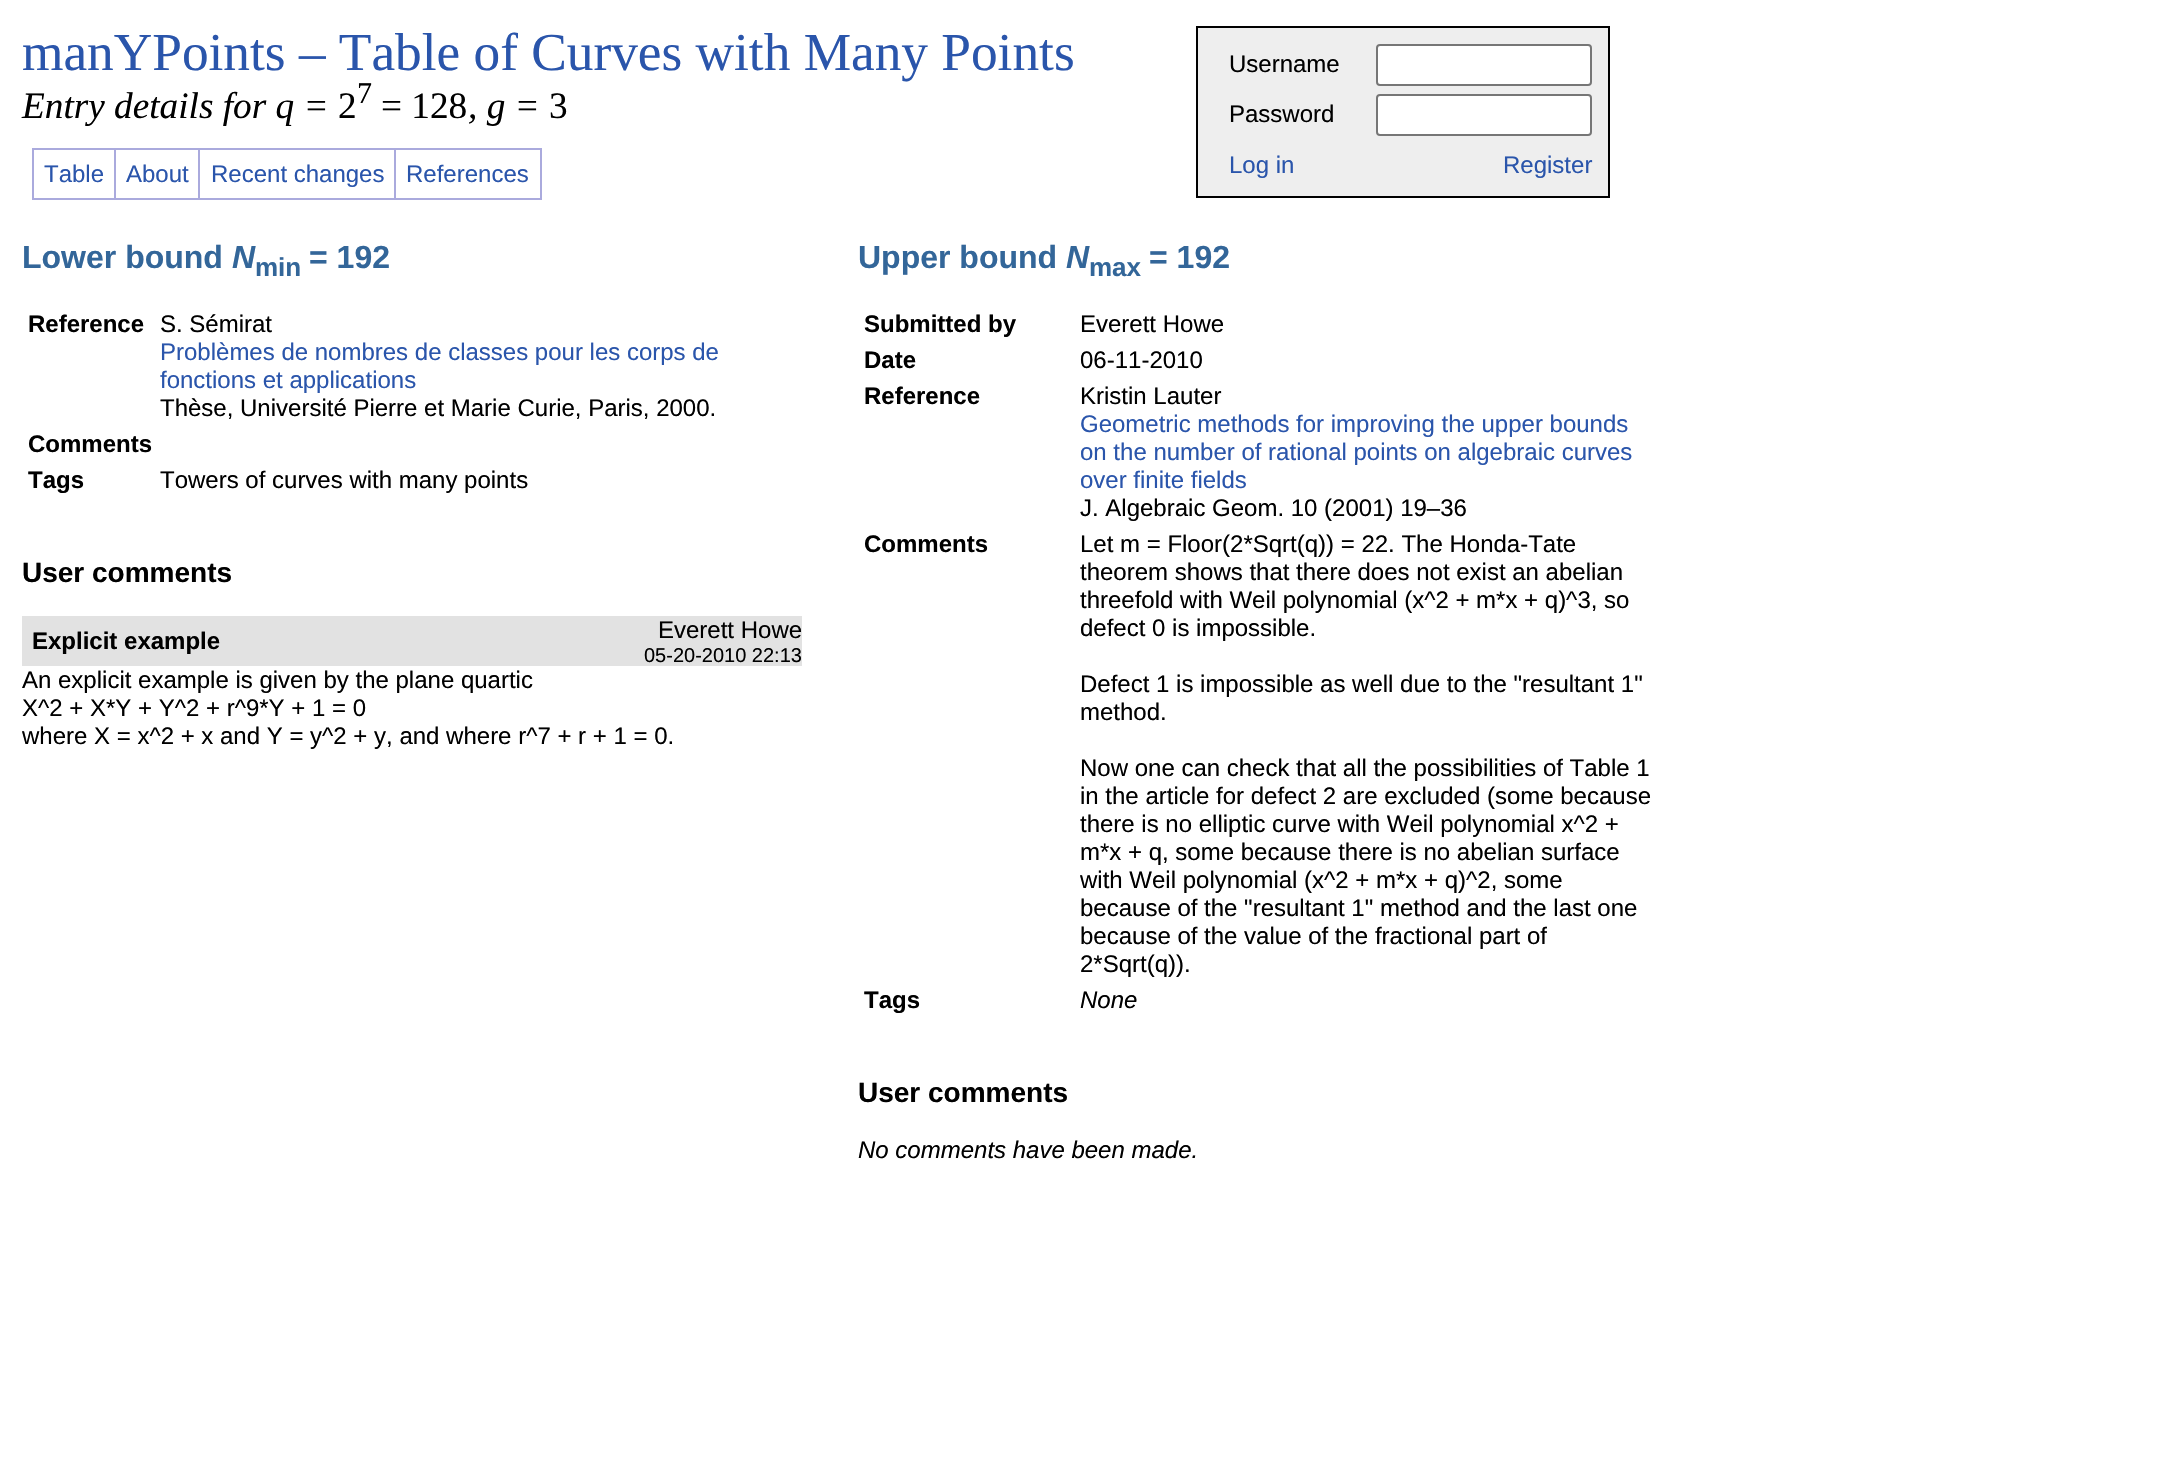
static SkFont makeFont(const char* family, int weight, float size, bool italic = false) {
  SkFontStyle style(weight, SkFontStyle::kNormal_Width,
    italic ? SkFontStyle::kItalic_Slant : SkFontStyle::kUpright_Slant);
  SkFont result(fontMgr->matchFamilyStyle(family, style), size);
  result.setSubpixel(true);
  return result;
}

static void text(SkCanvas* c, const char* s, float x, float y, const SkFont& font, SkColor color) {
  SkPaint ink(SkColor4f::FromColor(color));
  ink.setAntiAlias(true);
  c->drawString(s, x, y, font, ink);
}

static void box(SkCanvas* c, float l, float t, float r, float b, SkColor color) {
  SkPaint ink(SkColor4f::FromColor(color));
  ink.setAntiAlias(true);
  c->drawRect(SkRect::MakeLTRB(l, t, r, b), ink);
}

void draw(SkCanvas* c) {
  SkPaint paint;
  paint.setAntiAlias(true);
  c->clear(0xffffffff);
  SkFont face1 = makeFont("Liberation Serif", 400, 53.3f);
  text(c, "manYPoints – Table of Curves with Many Points", 22, 70, face1, 0xff2a55ab);
  SkFont face2 = makeFont("Liberation Serif", 400, 37.25f, true);
  text(c, "Entry details for q =", 22, 118, face2, 0xff000000);
  SkFont face3 = makeFont("Liberation Serif", 400, 37.25f);
  text(c, "2", 338, 118, face3, 0xff000000);
  SkFont face4 = makeFont("Liberation Serif", 400, 30);
  text(c, "7", 357, 103, face4, 0xff000000);
  text(c, "= 128", 381, 118, face3, 0xff000000);
  text(c, ", g =", 468, 118, face2, 0xff000000);
  text(c, "3", 549, 118, face3, 0xff000000);
  paint.setStyle(SkPaint::kStroke_Style);
  paint.setStrokeWidth(2);
  paint.setColor(0xffaaaadd);
  c->drawRect(SkRect::MakeLTRB(33, 149, 115, 199), paint);
  SkFont face5 = makeFont("Liberation Sans", 400, 24);
  text(c, "Table", 44, 182, face5, 0xff2a55ab);
  box(c, 116, 148, 542, 150, 0xffaaaadd);
  box(c, 198, 148, 200, 200, 0xffaaaadd);
  box(c, 116, 198, 200, 200, 0xffaaaadd);
  text(c, "About", 126, 182, face5, 0xff2a55ab);
  box(c, 394, 148, 396, 200, 0xffaaaadd);
  box(c, 200, 198, 396, 200, 0xffaaaadd);
  text(c, "Recent changes", 211, 182, face5, 0xff2a55ab);
  box(c, 540, 148, 542, 200, 0xffaaaadd);
  box(c, 396, 198, 542, 200, 0xffaaaadd);
  text(c, "References", 406, 182, face5, 0xff2a55ab);
  paint.setStyle(SkPaint::kFill_Style);
  paint.setColor(0xffeeeeee);
  c->drawRect(SkRect::MakeLTRB(1197, 27, 1609, 197), paint);
  paint.setStyle(SkPaint::kStroke_Style);
  paint.setColor(0xff000000);
  c->drawRect(SkRect::MakeLTRB(1197, 27, 1609, 197), paint);
  text(c, "Username", 1229, 72, face5, 0xff000000);
  paint.setStyle(SkPaint::kFill_Style);
  paint.setColor(0xffffffff);
  c->drawRoundRect(SkRect::MakeLTRB(1377, 45, 1591, 85), 3, 3, paint);
  paint.setStyle(SkPaint::kStroke_Style);
  paint.setColor(0xff767676);
  c->drawRoundRect(SkRect::MakeLTRB(1377, 45, 1591, 85), 3, 3, paint);
  text(c, "Password", 1229, 122, face5, 0xff000000);
  paint.setStyle(SkPaint::kFill_Style);
  paint.setColor(0xffffffff);
  c->drawRoundRect(SkRect::MakeLTRB(1377, 95, 1591, 135), 3, 3, paint);
  paint.setStyle(SkPaint::kStroke_Style);
  paint.setColor(0xff767676);
  c->drawRoundRect(SkRect::MakeLTRB(1377, 95, 1591, 135), 3, 3, paint);
  text(c, "Log in", 1229, 173, face5, 0xff2a55ab);
  text(c, "Register", 1503, 173, face5, 0xff2a55ab);
  SkFont face6 = makeFont("Liberation Sans", 700, 32);
  text(c, "Lower bound", 22, 268, face6, 0xff336699);
  SkFont face7 = makeFont("Liberation Sans", 700, 32, true);
  text(c, "N", 232, 268, face7, 0xff336699);
  SkFont face8 = makeFont("Liberation Sans", 700, 26);
  text(c, "min", 255, 276, face8, 0xff336699);
  text(c, "= 192", 309, 268, face6, 0xff336699);
  SkFont face9 = makeFont("Liberation Sans", 700, 24);
  text(c, "Reference", 28, 332, face9, 0xff000000);
  text(c, "S. Sémirat", 160, 332, face5, 0xff000000);
  text(c, "Problèmes de nombres de classes pour les corps de", 160, 360, face5, 0xff2a55ab);
  text(c, "fonctions et applications", 160, 388, face5, 0xff2a55ab);
  text(c, "Thèse, Université Pierre et Marie Curie, Paris, 2000.", 160, 416, face5, 0xff000000);
  text(c, "Comments", 28, 452, face9, 0xff000000);
  text(c, "Tags", 28, 488, face9, 0xff000000);
  text(c, "Towers of curves with many points", 160, 488, face5, 0xff000000);
  SkFont face10 = makeFont("Liberation Sans", 700, 28);
  text(c, "User comments", 22, 582, face10, 0xff000000);
  box(c, 22, 616, 802, 666, 0xffe2e2e2);
  text(c, "Explicit example", 32, 649, face9, 0xff000000);
  text(c, "Everett Howe", 658, 638, face5, 0xff000000);
  SkFont face11 = makeFont("Liberation Sans", 400, 20);
  text(c, "05-20-2010 22:13", 644, 662, face11, 0xff000000);
  text(c, "An explicit example is given by the plane quartic", 22, 688, face5, 0xff000000);
  text(c, "X^2 + X*Y + Y^2 + r^9*Y + 1 = 0", 22, 716, face5, 0xff000000);
  text(c, "where X = x^2 + x and Y = y^2 + y, and where r^7 + r + 1 = 0.", 22, 744, face5, 0xff000000);
  text(c, "Upper bound", 858, 268, face6, 0xff336699);
  text(c, "N", 1066, 268, face7, 0xff336699);
  text(c, "= 192", 1149, 268, face6, 0xff336699);
  text(c, "max", 1089, 276, face8, 0xff336699);
  text(c, "Submitted by", 864, 332, face9, 0xff000000);
  text(c, "Everett Howe", 1080, 332, face5, 0xff000000);
  text(c, "Date", 864, 368, face9, 0xff000000);
  text(c, "06-11-2010", 1080, 368, face5, 0xff000000);
  text(c, "Reference", 864, 404, face9, 0xff000000);
  text(c, "Kristin Lauter", 1080, 404, face5, 0xff000000);
  text(c, "Geometric methods for improving the upper bounds", 1080, 432, face5, 0xff2a55ab);
  text(c, "on the number of rational points on algebraic curves", 1080, 460, face5, 0xff2a55ab);
  text(c, "over finite fields", 1080, 488, face5, 0xff2a55ab);
  text(c, "J. Algebraic Geom. 10 (2001) 19–36", 1080, 516, face5, 0xff000000);
  text(c, "Comments", 864, 552, face9, 0xff000000);
  text(c, "Let m = Floor(2*Sqrt(q)) = 22. The Honda-Tate", 1080, 552, face5, 0xff000000);
  text(c, "theorem shows that there does not exist an abelian", 1080, 580, face5, 0xff000000);
  text(c, "threefold with Weil polynomial (x^2 + m*x + q)^3, so", 1080, 608, face5, 0xff000000);
  text(c, "defect 0 is impossible.", 1080, 636, face5, 0xff000000);
  text(c, "Defect 1 is impossible as well due to the \"resultant 1\"", 1080, 692, face5, 0xff000000);
  text(c, "method.", 1080, 720, face5, 0xff000000);
  text(c, "Now one can check that all the possibilities of Table 1", 1080, 776, face5, 0xff000000);
  text(c, "in the article for defect 2 are excluded (some because", 1080, 804, face5, 0xff000000);
  text(c, "there is no elliptic curve with Weil polynomial x^2 +", 1080, 832, face5, 0xff000000);
  text(c, "m*x + q, some because there is no abelian surface", 1080, 860, face5, 0xff000000);
  text(c, "with Weil polynomial (x^2 + m*x + q)^2, some", 1080, 888, face5, 0xff000000);
  text(c, "because of the \"resultant 1\" method and the last one", 1080, 916, face5, 0xff000000);
  text(c, "because of the value of the fractional part of", 1080, 944, face5, 0xff000000);
  text(c, "2*Sqrt(q)).", 1080, 972, face5, 0xff000000);
  text(c, "Tags", 864, 1008, face9, 0xff000000);
  SkFont face12 = makeFont("Liberation Sans", 400, 24, true);
  text(c, "None", 1080, 1008, face12, 0xff000000);
  text(c, "User comments", 858, 1102, face10, 0xff000000);
  text(c, "No comments have been made.", 858, 1158, face12, 0xff000000);
}
